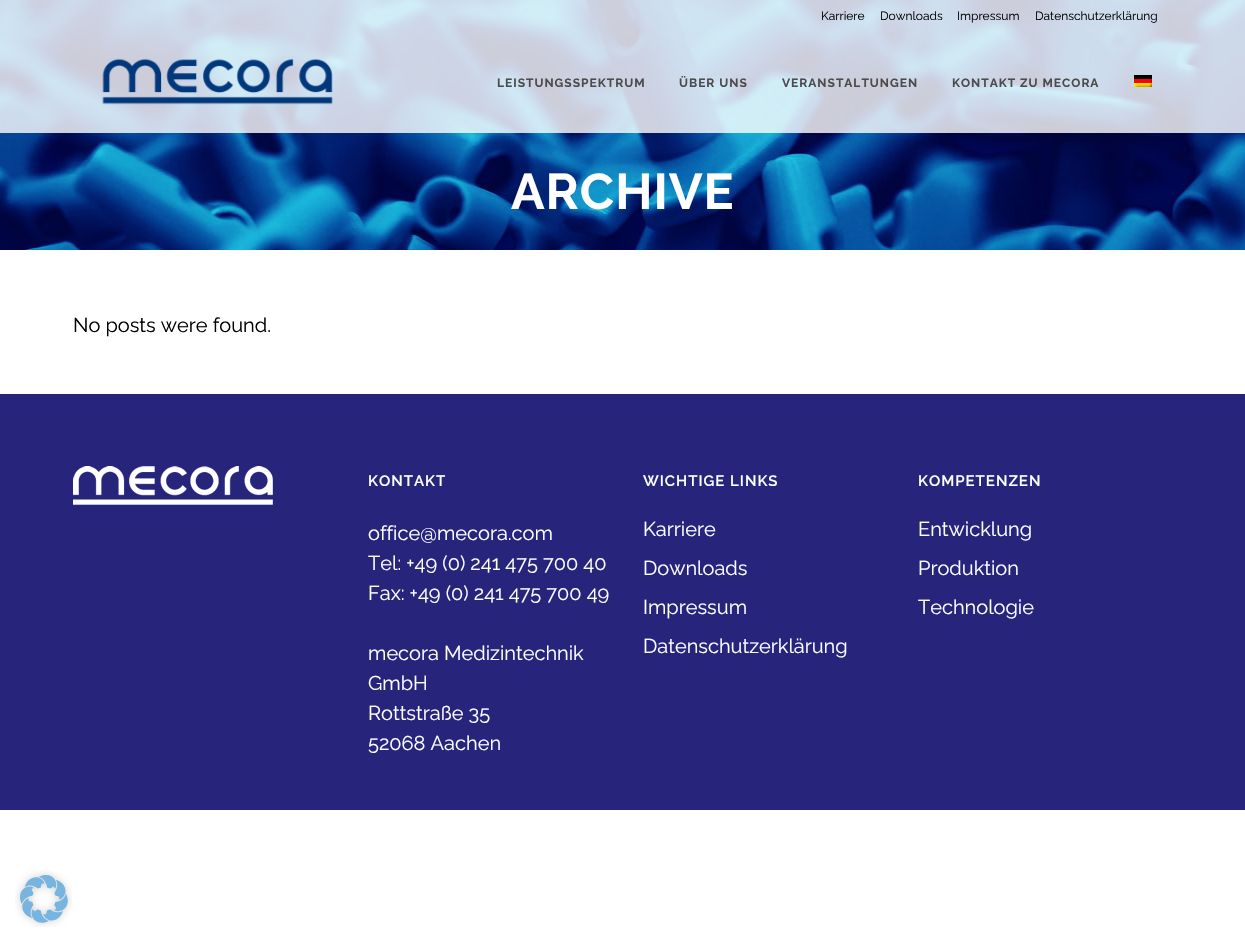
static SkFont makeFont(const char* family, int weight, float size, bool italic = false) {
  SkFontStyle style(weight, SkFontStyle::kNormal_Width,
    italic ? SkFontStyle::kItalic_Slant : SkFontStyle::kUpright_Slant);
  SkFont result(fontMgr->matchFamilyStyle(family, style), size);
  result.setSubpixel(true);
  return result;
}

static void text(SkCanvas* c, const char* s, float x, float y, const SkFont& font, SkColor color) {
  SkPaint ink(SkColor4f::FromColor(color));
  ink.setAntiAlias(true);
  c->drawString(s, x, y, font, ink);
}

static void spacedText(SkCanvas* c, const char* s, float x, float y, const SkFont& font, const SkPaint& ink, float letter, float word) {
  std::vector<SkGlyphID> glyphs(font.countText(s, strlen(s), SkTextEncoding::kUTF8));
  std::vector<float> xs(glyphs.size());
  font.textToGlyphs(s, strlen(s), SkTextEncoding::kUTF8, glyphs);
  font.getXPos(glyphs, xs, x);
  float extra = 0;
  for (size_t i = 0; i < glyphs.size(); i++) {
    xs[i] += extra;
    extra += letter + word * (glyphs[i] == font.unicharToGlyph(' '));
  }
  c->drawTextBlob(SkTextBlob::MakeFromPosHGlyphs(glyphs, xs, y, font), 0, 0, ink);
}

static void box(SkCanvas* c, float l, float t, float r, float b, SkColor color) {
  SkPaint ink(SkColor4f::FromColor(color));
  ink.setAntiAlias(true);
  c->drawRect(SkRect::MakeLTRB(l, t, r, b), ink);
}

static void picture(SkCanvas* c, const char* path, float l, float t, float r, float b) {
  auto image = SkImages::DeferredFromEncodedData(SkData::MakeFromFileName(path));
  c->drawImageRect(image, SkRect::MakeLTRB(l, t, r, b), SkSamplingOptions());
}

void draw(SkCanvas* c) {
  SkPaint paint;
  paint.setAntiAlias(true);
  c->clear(0xffffffff);
  picture(c, "img_03.png", 0, 0, 1245, 250);
  box(c, 0, 0, 1245, 33, 0xccffffff);
  SkFont face1 = makeFont("Raleway", 400, 12);
  text(c, "Karriere", 821, 20, face1, 0xff000000);
  text(c, "Downloads", 880, 20, face1, 0xff000000);
  text(c, "Impressum", 957, 20, face1, 0xff000000);
  text(c, "Datenschutzerklärung", 1035, 20, face1, 0xff000000);
  box(c, 0, 33, 1245, 133, 0xccffffff);
  picture(c, "img_01.png", 102, 58, 333, 105);
  SkFont face2 = makeFont("Raleway", 700, 12);
  paint.setColor(0xff4c4c4c);
  spacedText(c, "LEISTUNGSSPEKTRUM", 497, 87, face2, paint, 1, 0);
  spacedText(c, "ÜBER UNS", 679, 87, face2, paint, 1, 0);
  spacedText(c, "VERANSTALTUNGEN", 782, 87, face2, paint, 1, 0);
  spacedText(c, "KONTAKT ZU MECORA", 952, 87, face2, paint, 1, 0);
  picture(c, "img_02.png", 1134, 75, 1152, 87);
  SkFont face3 = makeFont("Raleway", 700, 50);
  paint.setColor(0xffffffff);
  spacedText(c, "ARCHIVE", 511, 209, face3, paint, 1, 0);
  SkFont face4 = makeFont("Raleway", 400, 20);
  text(c, "No posts were found.", 73, 332, face4, 0xff000000);
  box(c, 0, 394, 1245, 810, 0xff26247b);
  picture(c, "img_04.png", 73, 466, 273, 505);
  SkFont face5 = makeFont("Raleway", 600, 15);
  spacedText(c, "KONTAKT", 368, 486, face5, paint, 1, 0);
  text(c, "office@mecora.com", 368, 540, face4, 0xffffffff);
  text(c, "Tel: +49 (0) 241 475 700 40", 368, 570, face4, 0xffffffff);
  text(c, "Fax: +49 (0) 241 475 700 49", 368, 600, face4, 0xffffffff);
  text(c, "mecora Medizintechnik", 368, 660, face4, 0xffffffff);
  text(c, "GmbH", 368, 690, face4, 0xffffffff);
  text(c, "Rottstraße 35", 368, 720, face4, 0xffffffff);
  text(c, "52068 Aachen", 368, 750, face4, 0xffffffff);
  spacedText(c, "WICHTIGE LINKS", 643, 486, face5, paint, 1, 0);
  text(c, "Karriere", 643, 536, face4, 0xffffffff);
  text(c, "Downloads", 643, 575, face4, 0xffffffff);
  text(c, "Impressum", 643, 614, face4, 0xffffffff);
  text(c, "Datenschutzerklärung", 643, 653, face4, 0xffffffff);
  spacedText(c, "KOMPETENZEN", 918, 486, face5, paint, 1, 0);
  text(c, "Entwicklung", 918, 536, face4, 0xffffffff);
  text(c, "Produktion", 918, 575, face4, 0xffffffff);
  text(c, "Technologie", 918, 614, face4, 0xffffffff);
  picture(c, "img_05.png", 15, 870, 72, 927);
}
